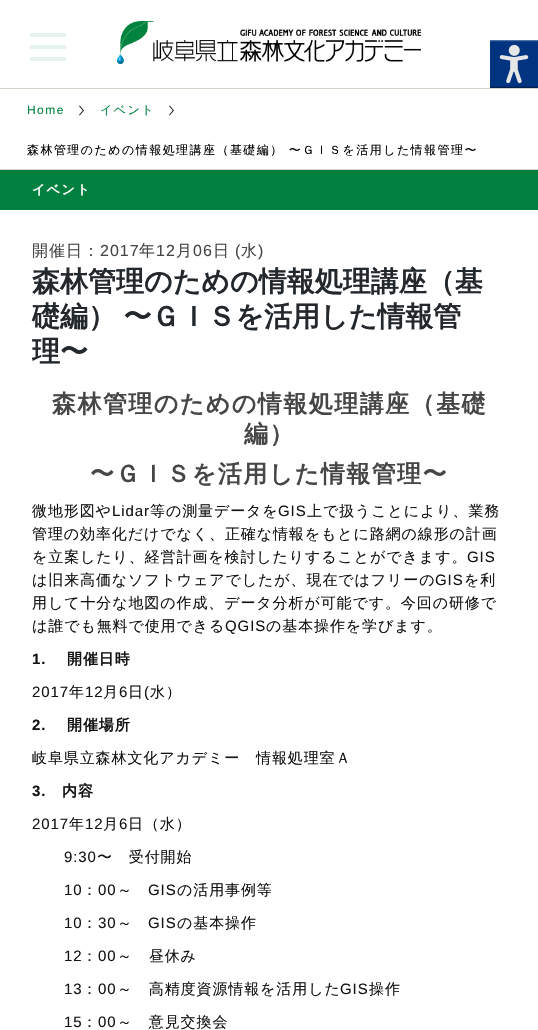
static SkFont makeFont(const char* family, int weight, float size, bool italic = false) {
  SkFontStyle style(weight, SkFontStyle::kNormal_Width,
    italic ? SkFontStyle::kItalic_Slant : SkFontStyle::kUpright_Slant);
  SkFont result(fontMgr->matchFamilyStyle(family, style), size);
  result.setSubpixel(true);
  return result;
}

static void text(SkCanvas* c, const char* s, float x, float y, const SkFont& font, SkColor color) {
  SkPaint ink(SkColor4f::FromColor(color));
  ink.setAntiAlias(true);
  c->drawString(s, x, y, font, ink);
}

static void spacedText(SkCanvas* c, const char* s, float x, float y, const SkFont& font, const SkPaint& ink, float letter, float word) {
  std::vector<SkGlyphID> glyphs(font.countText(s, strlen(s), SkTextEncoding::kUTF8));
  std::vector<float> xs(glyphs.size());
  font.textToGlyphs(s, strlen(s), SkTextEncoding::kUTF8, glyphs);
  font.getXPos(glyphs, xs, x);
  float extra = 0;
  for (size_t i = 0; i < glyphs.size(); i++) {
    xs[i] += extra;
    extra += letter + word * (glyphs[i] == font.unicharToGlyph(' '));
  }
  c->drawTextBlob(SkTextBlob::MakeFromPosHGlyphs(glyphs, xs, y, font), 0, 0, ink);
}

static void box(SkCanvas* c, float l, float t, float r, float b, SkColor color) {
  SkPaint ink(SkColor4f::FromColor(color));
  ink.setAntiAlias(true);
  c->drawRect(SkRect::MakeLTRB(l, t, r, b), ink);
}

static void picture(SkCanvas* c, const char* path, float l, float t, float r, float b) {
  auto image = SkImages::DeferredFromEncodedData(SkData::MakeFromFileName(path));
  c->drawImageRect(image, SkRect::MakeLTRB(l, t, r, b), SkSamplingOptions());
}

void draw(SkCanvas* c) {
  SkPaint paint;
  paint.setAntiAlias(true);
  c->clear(0xffffffff);
  picture(c, "img_01.png", 490, 40, 538, 88);
  box(c, 30, 33, 66, 37, 0xffe6f3ec);
  box(c, 30, 45, 66, 49, 0xffe6f3ec);
  box(c, 30, 57, 66, 61, 0xffe6f3ec);
  picture(c, "img_02.png", 117, 21, 421, 64);
  box(c, 0, 88, 538, 89, 0xffd4d4ca);
  box(c, 0, 169, 538, 170, 0xffd4d4ca);
  SkFont face1 = makeFont("Liberation Sans", 400, 12);
  paint.setColor(0xff00833e);
  spacedText(c, "Home", 27, 114, face1, paint, 1.45f, 0);
  picture(c, "img_03.png", 79, 105, 84, 116);
  SkFont face2 = makeFont("WenQuanYi Zen Hei", 500, 12);
  spacedText(c, "イベント", 100, 114, face2, paint, 1.45f, 0);
  picture(c, "img_03.png", 169, 105, 174, 116);
  paint.setColor(0xff000000);
  spacedText(c, "森林管理のための情報処理講座（基礎編） 〜ＧＩＳを活用した情報管理〜", 27, 154, face2, paint, 1.45f, 0);
  box(c, 0, 170, 538, 210, 0xff00803e);
  SkFont face3 = makeFont("WenQuanYi Zen Hei", 700, 13);
  paint.setColor(0xffffffff);
  spacedText(c, "イベント", 32, 194, face3, paint, 1.5f, 0);
  SkFont face4 = makeFont("WenQuanYi Zen Hei", 500, 16);
  paint.setColor(0xff464646);
  spacedText(c, "開催日：", 32, 256, face4, paint, 1, 0);
  SkFont face5 = makeFont("Liberation Sans", 400, 16);
  spacedText(c, "2017", 100, 256, face5, paint, 1, 0);
  spacedText(c, "年", 139, 256, face4, paint, 1, 0);
  spacedText(c, "12", 156, 256, face5, paint, 1, 0);
  spacedText(c, "月", 176, 256, face4, paint, 1, 0);
  spacedText(c, "06", 193, 256, face5, paint, 1, 0);
  spacedText(c, "日", 213, 256, face4, paint, 1, 0);
  spacedText(c, "(", 235, 256, face5, paint, 1, 0);
  spacedText(c, "水", 241, 256, face4, paint, 1, 0);
  spacedText(c, ")", 258, 256, face5, paint, 1, 0);
  SkFont face6 = makeFont("WenQuanYi Zen Hei", 700, 28);
  text(c, "森林管理のための情報処理講座（基", 32, 291, face6, 0xff23282d);
  paint.setColor(0xff23282d);
  spacedText(c, "礎編） 〜ＧＩＳを活用した情報管", 32, 326, face6, paint, 0, -1);
  text(c, "理〜", 32, 361, face6, 0xff23282d);
  SkFont face7 = makeFont("WenQuanYi Zen Hei", 700, 24);
  paint.setColor(0xff464646);
  spacedText(c, "森林管理のための情報処理講座（基礎", 52, 412, face7, paint, 1.45f, 0);
  spacedText(c, "編）", 244, 442, face7, paint, 1.45f, 0);
  spacedText(c, "〜ＧＩＳを活用した情報管理〜", 90, 482, face7, paint, 1.45f, 0);
  SkFont face8 = makeFont("WenQuanYi Zen Hei", 500, 15);
  paint.setColor(0xff141414);
  spacedText(c, "微地形図や", 32, 516, face8, paint, 0.9f, 0);
  SkFont face9 = makeFont("Liberation Sans", 400, 15);
  spacedText(c, "Lidar", 112, 516, face9, paint, 0.9f, 0);
  spacedText(c, "等の測量データを", 150, 516, face8, paint, 0.9f, 0);
  spacedText(c, "GIS", 278, 516, face9, paint, 0.9f, 0);
  spacedText(c, "上で扱うことにより、業務", 307, 516, face8, paint, 0.9f, 0);
  spacedText(c, "管理の効率化だけでなく、正確な情報をもとに路網の線形の計画", 32, 539, face8, paint, 0.9f, 0);
  spacedText(c, "を立案したり、経営計画を検討したりすることができます。", 32, 562, face8, paint, 0.9f, 0);
  spacedText(c, "GIS", 467, 562, face9, paint, 0.9f, 0);
  spacedText(c, "は旧来高価なソフトウェアでしたが、現在ではフリーの", 32, 585, face8, paint, 0.9f, 0);
  spacedText(c, "GIS", 435, 585, face9, paint, 0.9f, 0);
  spacedText(c, "を利", 464, 585, face8, paint, 0.9f, 0);
  spacedText(c, "用して十分な地図の作成、データ分析が可能です。今回の研修で", 32, 608, face8, paint, 0.9f, 0);
  spacedText(c, "は誰でも無料で使用できる", 32, 631, face8, paint, 0.9f, 0);
  spacedText(c, "QGIS", 225, 631, face9, paint, 0.9f, 0);
  spacedText(c, "の基本操作を学びます。", 266, 631, face8, paint, 0.9f, 0);
  SkFont face10 = makeFont("Liberation Sans", 700, 15);
  spacedText(c, "1.", 32, 664, face10, paint, 0.9f, 0);
  SkFont face11 = makeFont("WenQuanYi Zen Hei", 700, 15);
  spacedText(c, "開催日時", 67, 664, face11, paint, 0.9f, 0);
  spacedText(c, "2017", 32, 697, face9, paint, 0.9f, 0);
  spacedText(c, "年", 69, 697, face8, paint, 0.9f, 0);
  spacedText(c, "12", 85, 697, face9, paint, 0.9f, 0);
  spacedText(c, "月", 103, 697, face8, paint, 0.9f, 0);
  spacedText(c, "6", 119, 697, face9, paint, 0.9f, 0);
  spacedText(c, "日", 128, 697, face8, paint, 0.9f, 0);
  spacedText(c, "(", 144, 697, face9, paint, 0.9f, 0);
  spacedText(c, "水）", 150, 697, face8, paint, 0.9f, 0);
  spacedText(c, "2.", 32, 730, face10, paint, 0.9f, 0);
  spacedText(c, "開催場所", 67, 730, face11, paint, 0.9f, 0);
  spacedText(c, "岐阜県立森林文化アカデミー　情報処理室Ａ", 32, 763, face8, paint, 0.9f, 0);
  spacedText(c, "3.", 32, 796, face10, paint, 0.9f, 0);
  spacedText(c, "内容", 62, 796, face11, paint, 0.9f, 0);
  spacedText(c, "2017", 32, 829, face9, paint, 0.9f, 0);
  spacedText(c, "年", 69, 829, face8, paint, 0.9f, 0);
  spacedText(c, "12", 85, 829, face9, paint, 0.9f, 0);
  spacedText(c, "月", 103, 829, face8, paint, 0.9f, 0);
  spacedText(c, "6", 119, 829, face9, paint, 0.9f, 0);
  spacedText(c, "日（水）", 128, 829, face8, paint, 0.9f, 0);
  spacedText(c, "9:30", 64, 862, face9, paint, 0.9f, 0);
  spacedText(c, "〜　受付開始", 97, 862, face8, paint, 0.9f, 0);
  spacedText(c, "10", 64, 895, face9, paint, 0.9f, 0);
  spacedText(c, "：", 82, 895, face8, paint, 0.9f, 0);
  spacedText(c, "00", 98, 895, face9, paint, 0.9f, 0);
  spacedText(c, "～", 117, 895, face8, paint, 0.9f, 0);
  spacedText(c, "GIS", 148, 895, face9, paint, 0.9f, 0);
  spacedText(c, "の活用事例等", 177, 895, face8, paint, 0.9f, 0);
  spacedText(c, "10", 64, 928, face9, paint, 0.9f, 0);
  spacedText(c, "：", 82, 928, face8, paint, 0.9f, 0);
  spacedText(c, "30", 98, 928, face9, paint, 0.9f, 0);
  spacedText(c, "～", 117, 928, face8, paint, 0.9f, 0);
  spacedText(c, "GIS", 148, 928, face9, paint, 0.9f, 0);
  spacedText(c, "の基本操作", 177, 928, face8, paint, 0.9f, 0);
  spacedText(c, "12", 64, 961, face9, paint, 0.9f, 0);
  spacedText(c, "：", 82, 961, face8, paint, 0.9f, 0);
  spacedText(c, "00", 98, 961, face9, paint, 0.9f, 0);
  spacedText(c, "～　昼休み", 117, 961, face8, paint, 0.9f, 0);
  spacedText(c, "13", 64, 994, face9, paint, 0.9f, 0);
  spacedText(c, "：", 82, 994, face8, paint, 0.9f, 0);
  spacedText(c, "00", 98, 994, face9, paint, 0.9f, 0);
  spacedText(c, "～　高精度資源情報を活用した", 117, 994, face8, paint, 0.9f, 0);
  spacedText(c, "GIS", 340, 994, face9, paint, 0.9f, 0);
  spacedText(c, "操作", 369, 994, face8, paint, 0.9f, 0);
  spacedText(c, "15", 64, 1027, face9, paint, 0.9f, 0);
  spacedText(c, "：", 82, 1027, face8, paint, 0.9f, 0);
  spacedText(c, "00", 98, 1027, face9, paint, 0.9f, 0);
  spacedText(c, "～　意見交換会", 117, 1027, face8, paint, 0.9f, 0);
}
